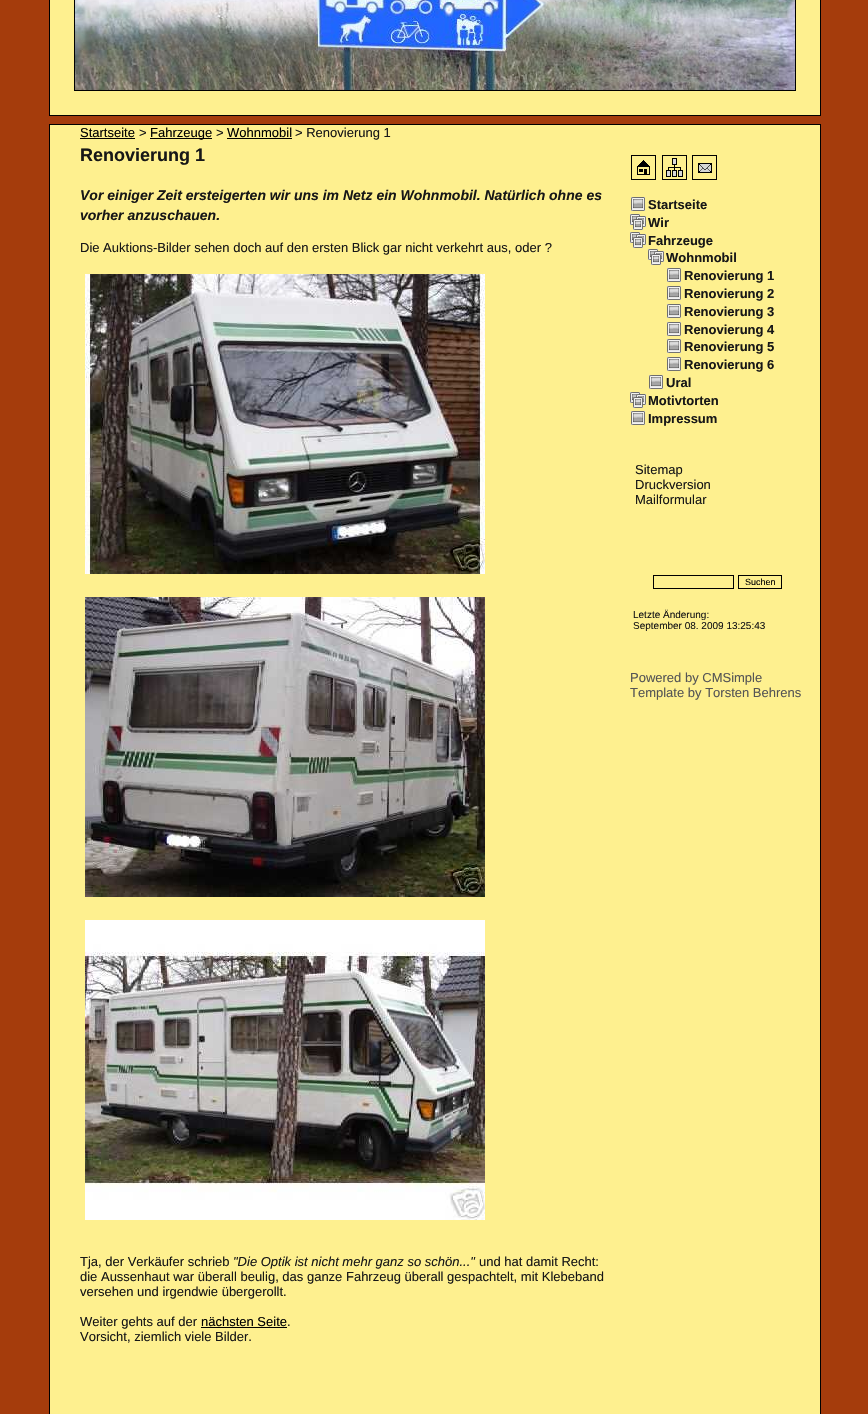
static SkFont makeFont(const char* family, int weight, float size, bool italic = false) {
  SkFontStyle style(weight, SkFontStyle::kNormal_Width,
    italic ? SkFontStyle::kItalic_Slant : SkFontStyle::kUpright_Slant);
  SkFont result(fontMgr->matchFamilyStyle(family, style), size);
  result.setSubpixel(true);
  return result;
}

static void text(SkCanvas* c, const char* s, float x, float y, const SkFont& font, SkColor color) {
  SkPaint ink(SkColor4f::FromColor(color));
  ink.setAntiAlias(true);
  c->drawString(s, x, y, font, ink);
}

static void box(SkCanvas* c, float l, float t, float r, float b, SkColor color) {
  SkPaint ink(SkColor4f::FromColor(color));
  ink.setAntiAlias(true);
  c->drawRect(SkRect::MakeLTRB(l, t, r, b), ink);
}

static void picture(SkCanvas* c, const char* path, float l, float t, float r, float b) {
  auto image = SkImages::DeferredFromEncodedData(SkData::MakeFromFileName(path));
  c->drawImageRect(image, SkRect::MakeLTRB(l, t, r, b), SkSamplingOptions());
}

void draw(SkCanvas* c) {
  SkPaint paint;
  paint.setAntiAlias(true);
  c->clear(0xffa53c0c);
  paint.setColor(0xfffef08f);
  c->drawRect(SkRect::MakeLTRB(49.5f, -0.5f, 820.5f, 115.5f), paint);
  paint.setStyle(SkPaint::kStroke_Style);
  paint.setStrokeWidth(1);
  paint.setColor(0xff000000);
  c->drawRect(SkRect::MakeLTRB(49.5f, -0.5f, 820.5f, 115.5f), paint);
  picture(c, "img_01.png", 75, 0, 795, 90);
  c->drawRect(SkRect::MakeLTRB(74.5f, -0.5f, 795.5f, 90.5f), paint);
  paint.setStyle(SkPaint::kFill_Style);
  paint.setColor(0xfffef08f);
  c->drawRect(SkRect::MakeLTRB(49.5f, 124.5f, 820.5f, 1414.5f), paint);
  paint.setStyle(SkPaint::kStroke_Style);
  paint.setColor(0xff000000);
  c->drawRect(SkRect::MakeLTRB(49.5f, 124.5f, 820.5f, 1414.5f), paint);
  SkFont face1 = makeFont("Liberation Sans", 400, 13);
  text(c, "Startseite", 80, 137, face1, 0xff000000);
  box(c, 80, 138, 135, 139, 0xff000000);
  text(c, ">", 139, 137, face1, 0xff171717);
  box(c, 150, 138, 212, 139, 0xff000000);
  text(c, "Fahrzeuge", 150, 137, face1, 0xff000000);
  text(c, ">", 216, 137, face1, 0xff171717);
  text(c, "Wohnmobil", 227, 137, face1, 0xff000000);
  box(c, 227, 138, 292, 139, 0xff000000);
  text(c, "> Renovierung 1", 295, 137, face1, 0xff171717);
  SkFont face2 = makeFont("Liberation Sans", 700, 18);
  text(c, "Renovierung 1", 80, 161, face2, 0xff171717);
  SkFont face3 = makeFont("Liberation Sans", 700, 14, true);
  text(c, "Vor einiger Zeit ersteigerten wir uns im Netz ein Wohnmobil. Natürlich ohne es", 80, 200, face3, 0xff171717);
  text(c, "vorher anzuschauen.", 80, 220, face3, 0xff171717);
  text(c, "Die Auktions-Bilder sehen doch auf den ersten Blick gar nicht verkehrt aus, oder ?", 80, 252, face1, 0xff171717);
  picture(c, "img_02.png", 85, 274, 485, 574);
  picture(c, "img_03.png", 85, 597, 485, 897);
  picture(c, "img_04.png", 85, 920, 485, 1220);
  text(c, "Tja, der Verkäufer schrieb", 80, 1266, face1, 0xff171717);
  SkFont face4 = makeFont("Liberation Sans", 400, 13, true);
  text(c, "\"Die Optik ist nicht mehr ganz so schön...\"", 233, 1266, face4, 0xff171717);
  text(c, "und hat damit Recht:", 479, 1266, face1, 0xff171717);
  text(c, "die Aussenhaut war überall beulig, das ganze Fahrzeug überall gespachtelt, mit Klebeband", 80, 1281, face1, 0xff171717);
  text(c, "versehen und irgendwie übergerollt.", 80, 1296, face1, 0xff171717);
  text(c, "Weiter gehts auf der", 80, 1326, face1, 0xff171717);
  text(c, "nächsten Seite", 201, 1326, face1, 0xff000000);
  box(c, 201, 1327, 287, 1328, 0xff000000);
  text(c, ".", 287, 1326, face1, 0xff171717);
  text(c, "Vorsicht, ziemlich viele Bilder.", 80, 1341, face1, 0xff171717);
  picture(c, "img_05.png", 631, 155, 656, 180);
  picture(c, "img_06.png", 662, 155, 687, 180);
  picture(c, "img_07.png", 692, 155, 717, 180);
  picture(c, "img_08.png", 631, 197, 645, 211);
  SkFont face5 = makeFont("Liberation Sans", 700, 13);
  text(c, "Startseite", 648, 209, face5, 0xff171717);
  picture(c, "img_09.png", 630, 214, 646, 230);
  text(c, "Wir", 648, 227, face5, 0xff171717);
  picture(c, "img_09.png", 630, 232, 646, 248);
  text(c, "Fahrzeuge", 648, 245, face5, 0xff171717);
  picture(c, "img_09.png", 648, 249, 664, 265);
  text(c, "Wohnmobil", 666, 262, face5, 0xff171717);
  picture(c, "img_08.png", 667, 268, 681, 282);
  text(c, "Renovierung 1", 684, 280, face5, 0xff171717);
  picture(c, "img_08.png", 667, 286, 681, 300);
  text(c, "Renovierung 2", 684, 298, face5, 0xff171717);
  picture(c, "img_08.png", 667, 304, 681, 318);
  text(c, "Renovierung 3", 684, 316, face5, 0xff171717);
  picture(c, "img_08.png", 667, 322, 681, 336);
  text(c, "Renovierung 4", 684, 334, face5, 0xff171717);
  picture(c, "img_08.png", 667, 339, 681, 353);
  text(c, "Renovierung 5", 684, 351, face5, 0xff171717);
  picture(c, "img_08.png", 667, 357, 681, 371);
  text(c, "Renovierung 6", 684, 369, face5, 0xff171717);
  picture(c, "img_08.png", 649, 375, 663, 389);
  text(c, "Ural", 666, 387, face5, 0xff171717);
  picture(c, "img_09.png", 630, 392, 646, 408);
  text(c, "Motivtorten", 648, 405, face5, 0xff171717);
  picture(c, "img_08.png", 631, 411, 645, 425);
  text(c, "Impressum", 648, 423, face5, 0xff171717);
  text(c, "Sitemap", 635, 474, face1, 0xff171717);
  text(c, "Druckversion", 635, 489, face1, 0xff171717);
  text(c, "Mailformular", 635, 504, face1, 0xff171717);
  c->drawRect(SkRect::MakeLTRB(653.5f, 575.5f, 733.5f, 588.5f), paint);
  c->drawRect(SkRect::MakeLTRB(738.5f, 575.5f, 781.5f, 588.5f), paint);
  SkFont face6 = makeFont("Liberation Sans", 400, 9);
  text(c, "Suchen", 745, 585, face6, 0xff000000);
  SkFont face7 = makeFont("Liberation Sans", 400, 10);
  text(c, "Letzte Änderung:", 633, 618, face7, 0xff171717);
  text(c, "September 08. 2009 13:25:43", 633, 629, face7, 0xff171717);
  text(c, "Powered by CMSimple", 630, 682, face1, 0xff555555);
  text(c, "Template by Torsten Behrens", 630, 697, face1, 0xff555555);
}
